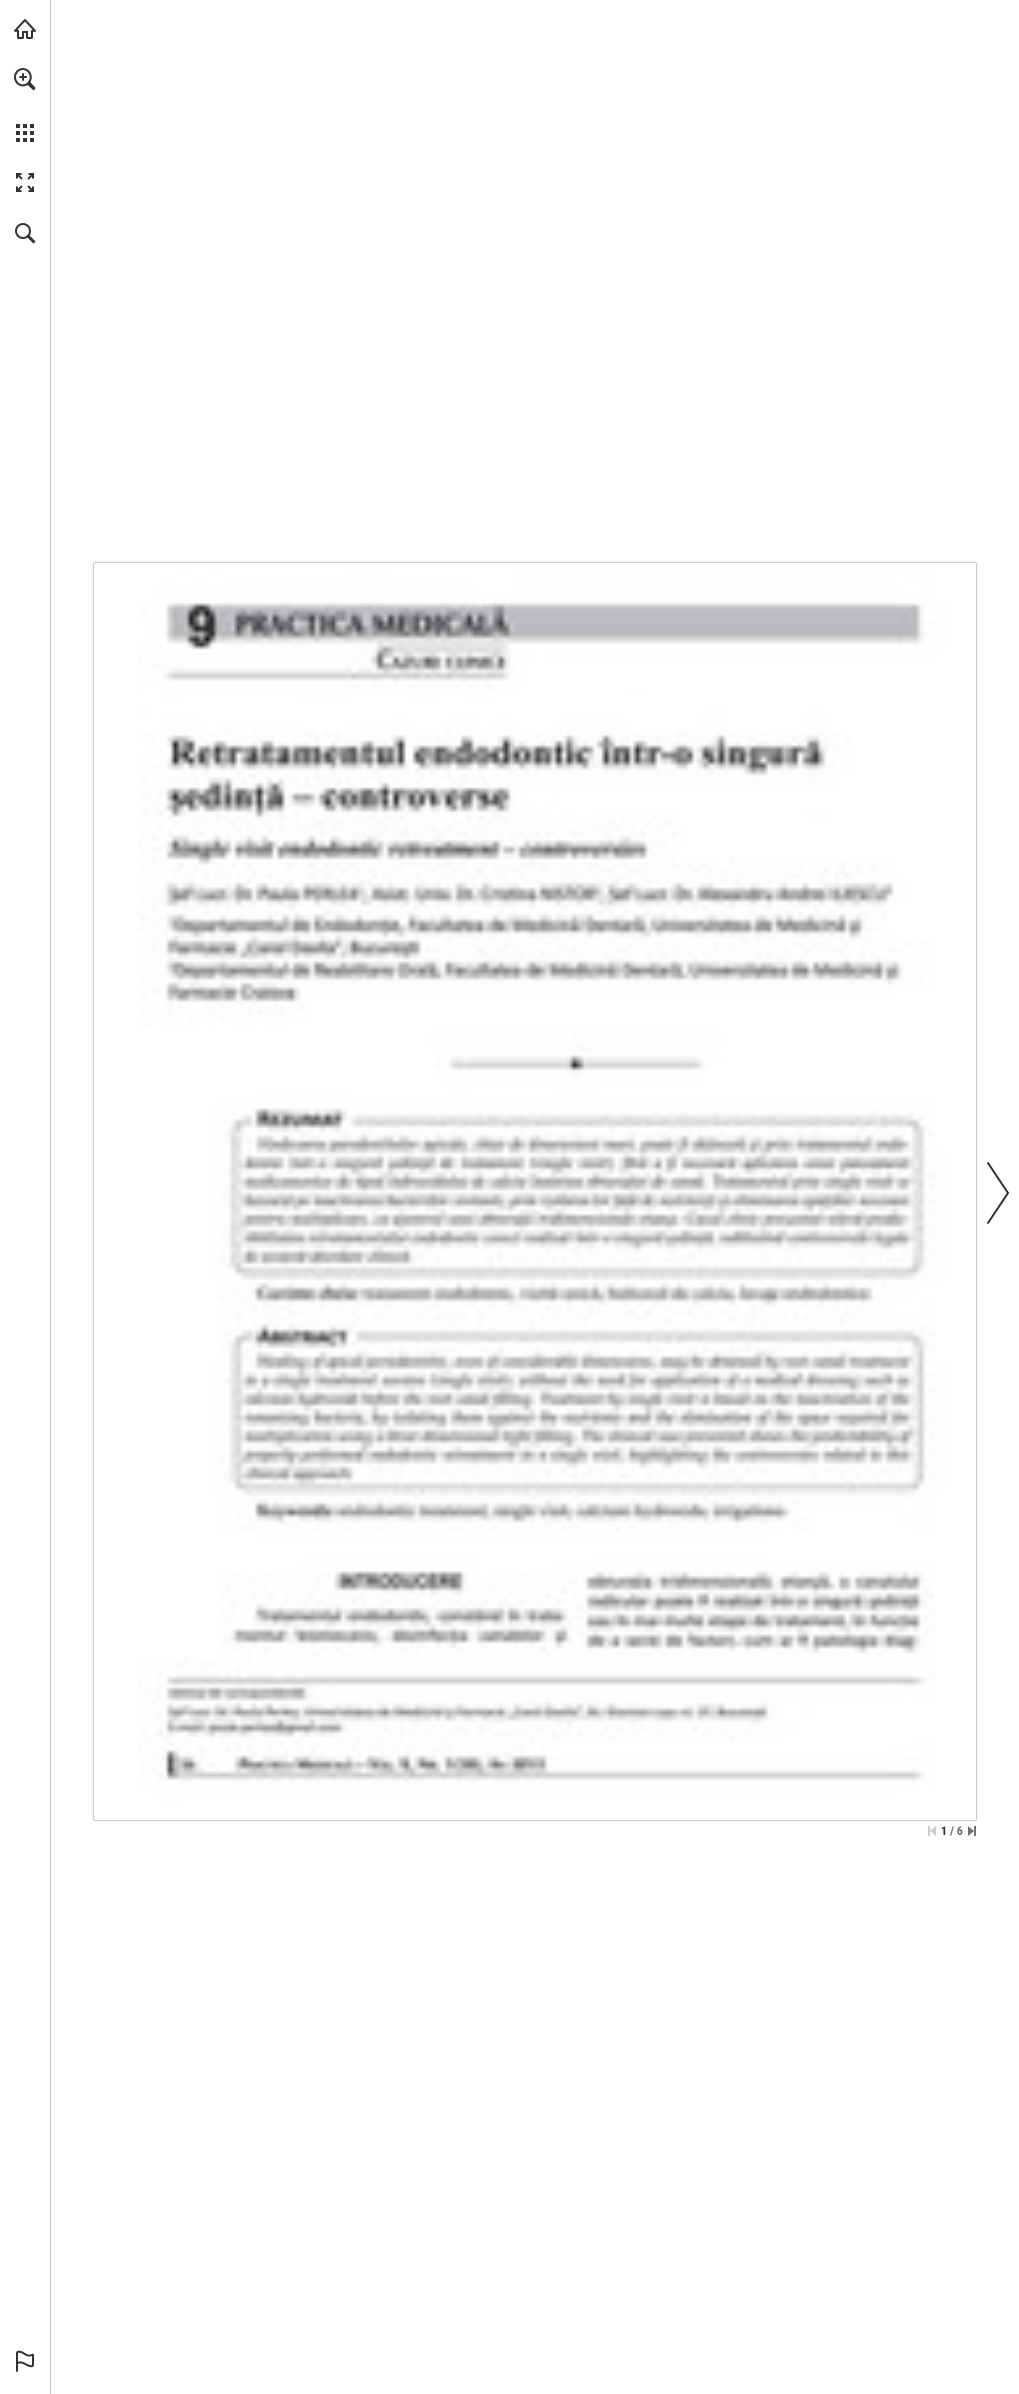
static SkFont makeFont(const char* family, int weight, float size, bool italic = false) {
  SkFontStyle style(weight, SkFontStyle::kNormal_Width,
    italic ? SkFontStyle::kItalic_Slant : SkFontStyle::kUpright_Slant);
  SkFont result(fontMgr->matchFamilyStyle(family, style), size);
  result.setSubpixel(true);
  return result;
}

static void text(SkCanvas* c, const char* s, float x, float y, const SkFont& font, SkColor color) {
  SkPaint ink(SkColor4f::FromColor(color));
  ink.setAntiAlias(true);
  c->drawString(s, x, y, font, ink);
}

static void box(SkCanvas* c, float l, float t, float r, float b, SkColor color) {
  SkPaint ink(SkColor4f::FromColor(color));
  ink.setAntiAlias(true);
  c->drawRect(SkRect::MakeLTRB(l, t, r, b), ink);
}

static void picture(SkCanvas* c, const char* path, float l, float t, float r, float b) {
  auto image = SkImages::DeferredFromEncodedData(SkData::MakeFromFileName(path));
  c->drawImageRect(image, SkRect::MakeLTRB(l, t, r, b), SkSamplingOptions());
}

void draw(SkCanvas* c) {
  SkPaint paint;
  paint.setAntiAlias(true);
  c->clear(0xffffffff);
  paint.setColor(0x33000000);
  paint.setMaskFilter(SkMaskFilter::MakeBlur(kNormal_SkBlurStyle, 0.5f));
  c->drawRect(SkRect::MakeLTRB(1, 0, 51, 2394), paint);
  paint.setMaskFilter(nullptr);
  box(c, 0, 0, 50, 2394, 0xffffffff);
  picture(c, "img_01.png", 14, 19, 36, 39);
  picture(c, "img_02.png", 14, 68, 36, 91);
  picture(c, "img_03.png", 16, 124, 34, 142);
  picture(c, "img_04.png", 16, 173, 34, 192);
  picture(c, "img_05.png", 15, 223, 36, 244);
  picture(c, "img_06.png", 16, 2350, 34, 2372);
  paint.setColor(0x0d121212);
  paint.setMaskFilter(SkMaskFilter::MakeBlur(kNormal_SkBlurStyle, 1));
  c->drawRoundRect(SkRect::MakeLTRB(92, 561, 978, 1822), 3, 3, paint);
  paint.setMaskFilter(nullptr);
  paint.setColor(0xffffffff);
  c->drawRoundRect(SkRect::MakeLTRB(93.5f, 562.5f, 976.5f, 1820.5f), 1.5f, 1.5f, paint);
  paint.setStyle(SkPaint::kStroke_Style);
  paint.setStrokeWidth(1);
  paint.setColor(0xffcccccc);
  c->drawRoundRect(SkRect::MakeLTRB(93.5f, 562.5f, 976.5f, 1820.5f), 1.5f, 1.5f, paint);
  picture(c, "img_07.png", 137, 563, 976, 1820);
  picture(c, "img_08.png", 987, 1162, 1010, 1224);
  picture(c, "img_09.png", 928, 1826, 936, 1836);
  SkFont face1 = makeFont("Roboto Condensed", 700, 12);
  text(c, "1", 941, 1835, face1, 0xff333333);
  text(c, "/ 6", 950, 1835, face1, 0xff707070);
  picture(c, "img_10.png", 968, 1826, 976, 1836);
}
